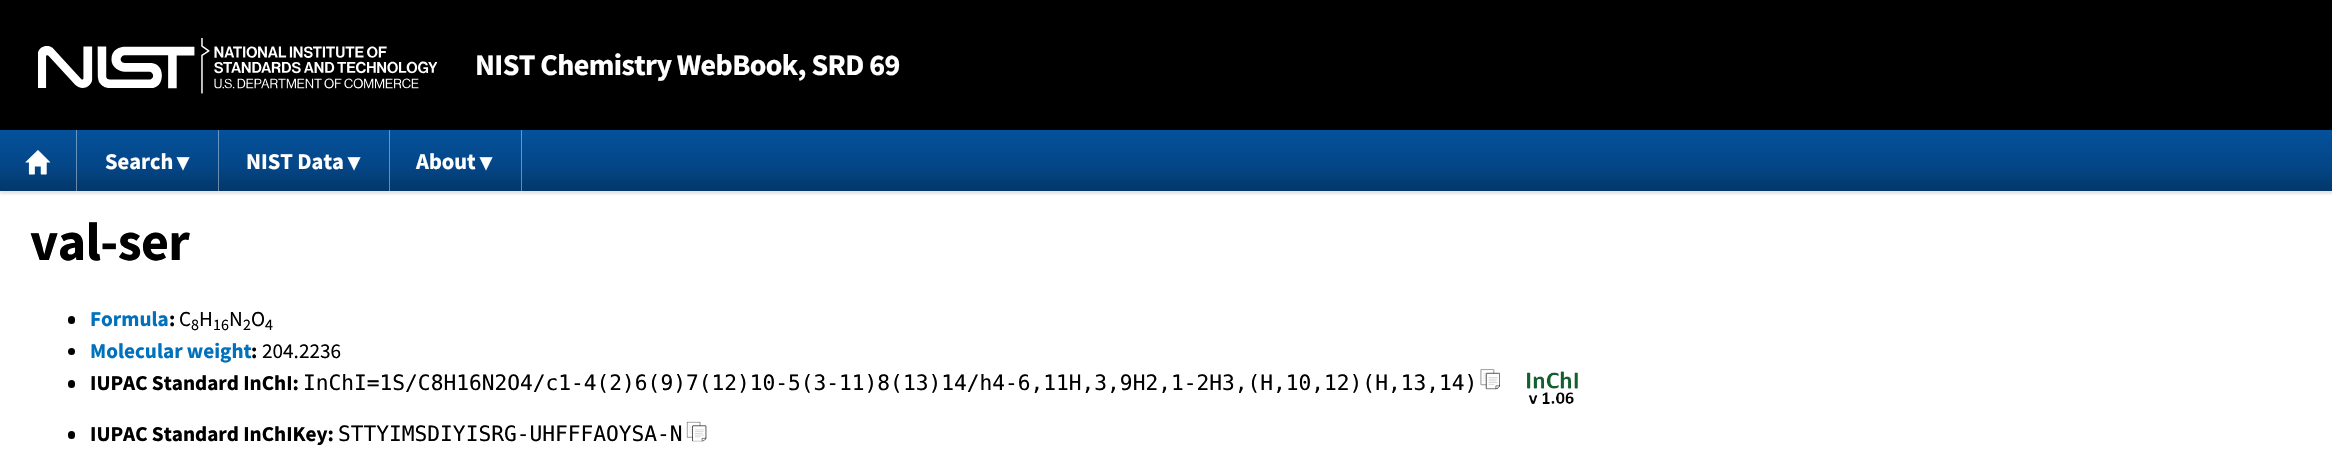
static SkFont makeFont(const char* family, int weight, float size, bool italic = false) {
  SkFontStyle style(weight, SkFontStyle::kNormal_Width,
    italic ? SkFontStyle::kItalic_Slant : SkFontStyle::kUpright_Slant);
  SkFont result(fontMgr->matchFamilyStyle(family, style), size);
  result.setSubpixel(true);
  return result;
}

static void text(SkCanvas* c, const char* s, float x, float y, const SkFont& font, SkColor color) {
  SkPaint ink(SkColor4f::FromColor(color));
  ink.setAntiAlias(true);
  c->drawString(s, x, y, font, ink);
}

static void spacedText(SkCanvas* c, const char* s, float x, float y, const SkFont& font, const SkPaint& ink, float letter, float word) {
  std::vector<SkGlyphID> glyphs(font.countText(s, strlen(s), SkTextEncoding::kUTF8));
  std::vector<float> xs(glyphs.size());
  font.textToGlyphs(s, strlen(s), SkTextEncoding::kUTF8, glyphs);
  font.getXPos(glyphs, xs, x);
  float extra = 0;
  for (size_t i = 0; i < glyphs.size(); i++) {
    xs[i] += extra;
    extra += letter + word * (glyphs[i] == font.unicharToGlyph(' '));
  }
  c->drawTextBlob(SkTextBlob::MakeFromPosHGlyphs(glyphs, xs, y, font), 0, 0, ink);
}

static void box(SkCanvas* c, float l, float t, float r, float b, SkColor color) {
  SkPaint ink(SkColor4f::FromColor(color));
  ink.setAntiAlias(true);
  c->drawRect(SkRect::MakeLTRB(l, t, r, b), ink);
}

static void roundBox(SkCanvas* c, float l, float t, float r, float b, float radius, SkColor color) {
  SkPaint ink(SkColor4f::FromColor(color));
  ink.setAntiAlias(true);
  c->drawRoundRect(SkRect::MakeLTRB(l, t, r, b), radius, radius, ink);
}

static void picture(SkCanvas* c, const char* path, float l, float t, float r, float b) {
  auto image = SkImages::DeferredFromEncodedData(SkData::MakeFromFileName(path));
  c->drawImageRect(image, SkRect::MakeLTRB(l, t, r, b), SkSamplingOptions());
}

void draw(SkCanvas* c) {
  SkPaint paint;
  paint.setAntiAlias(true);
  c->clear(0xffffffff);
  paint.setColor(0x1a000000);
  paint.setMaskFilter(SkMaskFilter::MakeBlur(kNormal_SkBlurStyle, 1));
  c->drawRect(SkRect::MakeLTRB(0, 133, 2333, 194), paint);
  paint.setMaskFilter(nullptr);
  box(c, 0, 0, 2332, 130, 0xff000000);
  picture(c, "img_01.png", 38, 38, 438, 94);
  SkFont face1 = makeFont("Source Sans Pro", 700, 30);
  paint.setColor(0xffffffff);
  spacedText(c, "NIST Chemistry WebBook, SRD 69", 475, 75, face1, paint, -0.6f, 0);
  {
    const SkColor colors[] = {0xff04519b, 0xff044687, 0xff033769};
    const float stops[] = {0, 0.6f, 1};
    const SkPoint ends[] = {{1166, 130}, {1166, 191}};
    paint.setShader(SkGradientShader::MakeLinear(ends, colors, stops, 3, SkTileMode::kClamp));
    paint.setAlpha(255);
  }
  c->drawRect(SkRect::MakeLTRB(0, 130, 2332, 191), paint);
  {
    const SkColor colors[] = {0xff6897c3, 0xff6890b7, 0xff6887a5};
    const float stops[] = {0, 0.6f, 1};
    const SkPoint ends[] = {{1166, 130}, {1166, 191}};
    paint.setShader(SkGradientShader::MakeLinear(ends, colors, stops, 3, SkTileMode::kClamp));
    paint.setAlpha(255);
  }
  c->drawRect(SkRect::MakeLTRB(521, 130, 522, 191), paint);
  c->drawRect(SkRect::MakeLTRB(389, 130, 390, 191), paint);
  c->drawRect(SkRect::MakeLTRB(218, 130, 219, 191), paint);
  c->drawRect(SkRect::MakeLTRB(76, 130, 77, 191), paint);
  picture(c, "img_02.png", 25, 150, 51, 175);
  SkFont face2 = makeFont("Source Sans Pro", 700, 22.5f);
  text(c, "Search", 105, 169, face2, 0xffffffff);
  SkFont face3 = makeFont("Source Sans Pro", 700, 16);
  text(c, "▼", 176, 169, face3, 0xffffffff);
  text(c, "NIST Data", 246, 169, face2, 0xffffffff);
  text(c, "▼", 347, 169, face3, 0xffffffff);
  text(c, "About", 416, 169, face2, 0xffffffff);
  text(c, "▼", 479, 169, face3, 0xffffffff);
  SkFont face4 = makeFont("Source Sans Pro", 700, 54);
  paint.setShader(nullptr);
  paint.setColor(0xff000000);
  spacedText(c, "val-ser", 30, 260, face4, paint, -0.6f, 0);
  roundBox(c, 68, 316, 75, 324, 3.5f, 0xff000000);
  SkFont face5 = makeFont("Source Sans Pro", 700, 21.2f);
  text(c, "Formula", 90, 326, face5, 0xff0071bc);
  text(c, ":", 169, 326, face5, 0xff000000);
  SkFont face6 = makeFont("Source Sans Pro", 400, 21.2f);
  text(c, "C", 179, 326, face6, 0xff000000);
  SkFont face7 = makeFont("Source Sans Pro", 400, 16);
  text(c, "8", 191, 330, face7, 0xff000000);
  text(c, "H", 199, 326, face6, 0xff000000);
  text(c, "16", 213, 330, face7, 0xff000000);
  text(c, "N", 229, 326, face6, 0xff000000);
  text(c, "2", 243, 330, face7, 0xff000000);
  text(c, "O", 251, 326, face6, 0xff000000);
  text(c, "4", 265, 330, face7, 0xff000000);
  c->drawCircle(71.5f, 351.5f, 3.5f, paint);
  text(c, "Molecular weight", 90, 358, face5, 0xff0071bc);
  text(c, ":", 251, 358, face5, 0xff000000);
  text(c, "204.2236", 262, 358, face6, 0xff000000);
  roundBox(c, 68, 380, 75, 388, 3.5f, 0xff000000);
  text(c, "IUPAC Standard InChI:", 90, 390, face5, 0xff000000);
  SkFont face8 = makeFont("DejaVu Sans Mono", 400, 21.2f);
  text(c, "InChI=1S/C8H16N2O4/c1-4(2)6(9)7(12)10-5(3-11)8(13)14/h4-6,11H,3,9H2,1-2H3,(H,10,12)(H,13,14)", 303, 390, face8, 0xff000000);
  picture(c, "img_03.png", 1480, 369, 1500, 390);
  picture(c, "img_04.png", 1527, 371, 1578, 404);
  roundBox(c, 68, 431, 75, 439, 3.5f, 0xff000000);
  text(c, "IUPAC Standard InChIKey:", 90, 441, face5, 0xff000000);
  text(c, "STTYIMSDIYISRG-UHFFFAOYSA-N", 338, 441, face8, 0xff000000);
  picture(c, "img_05.png", 686, 421, 707, 442);
}
